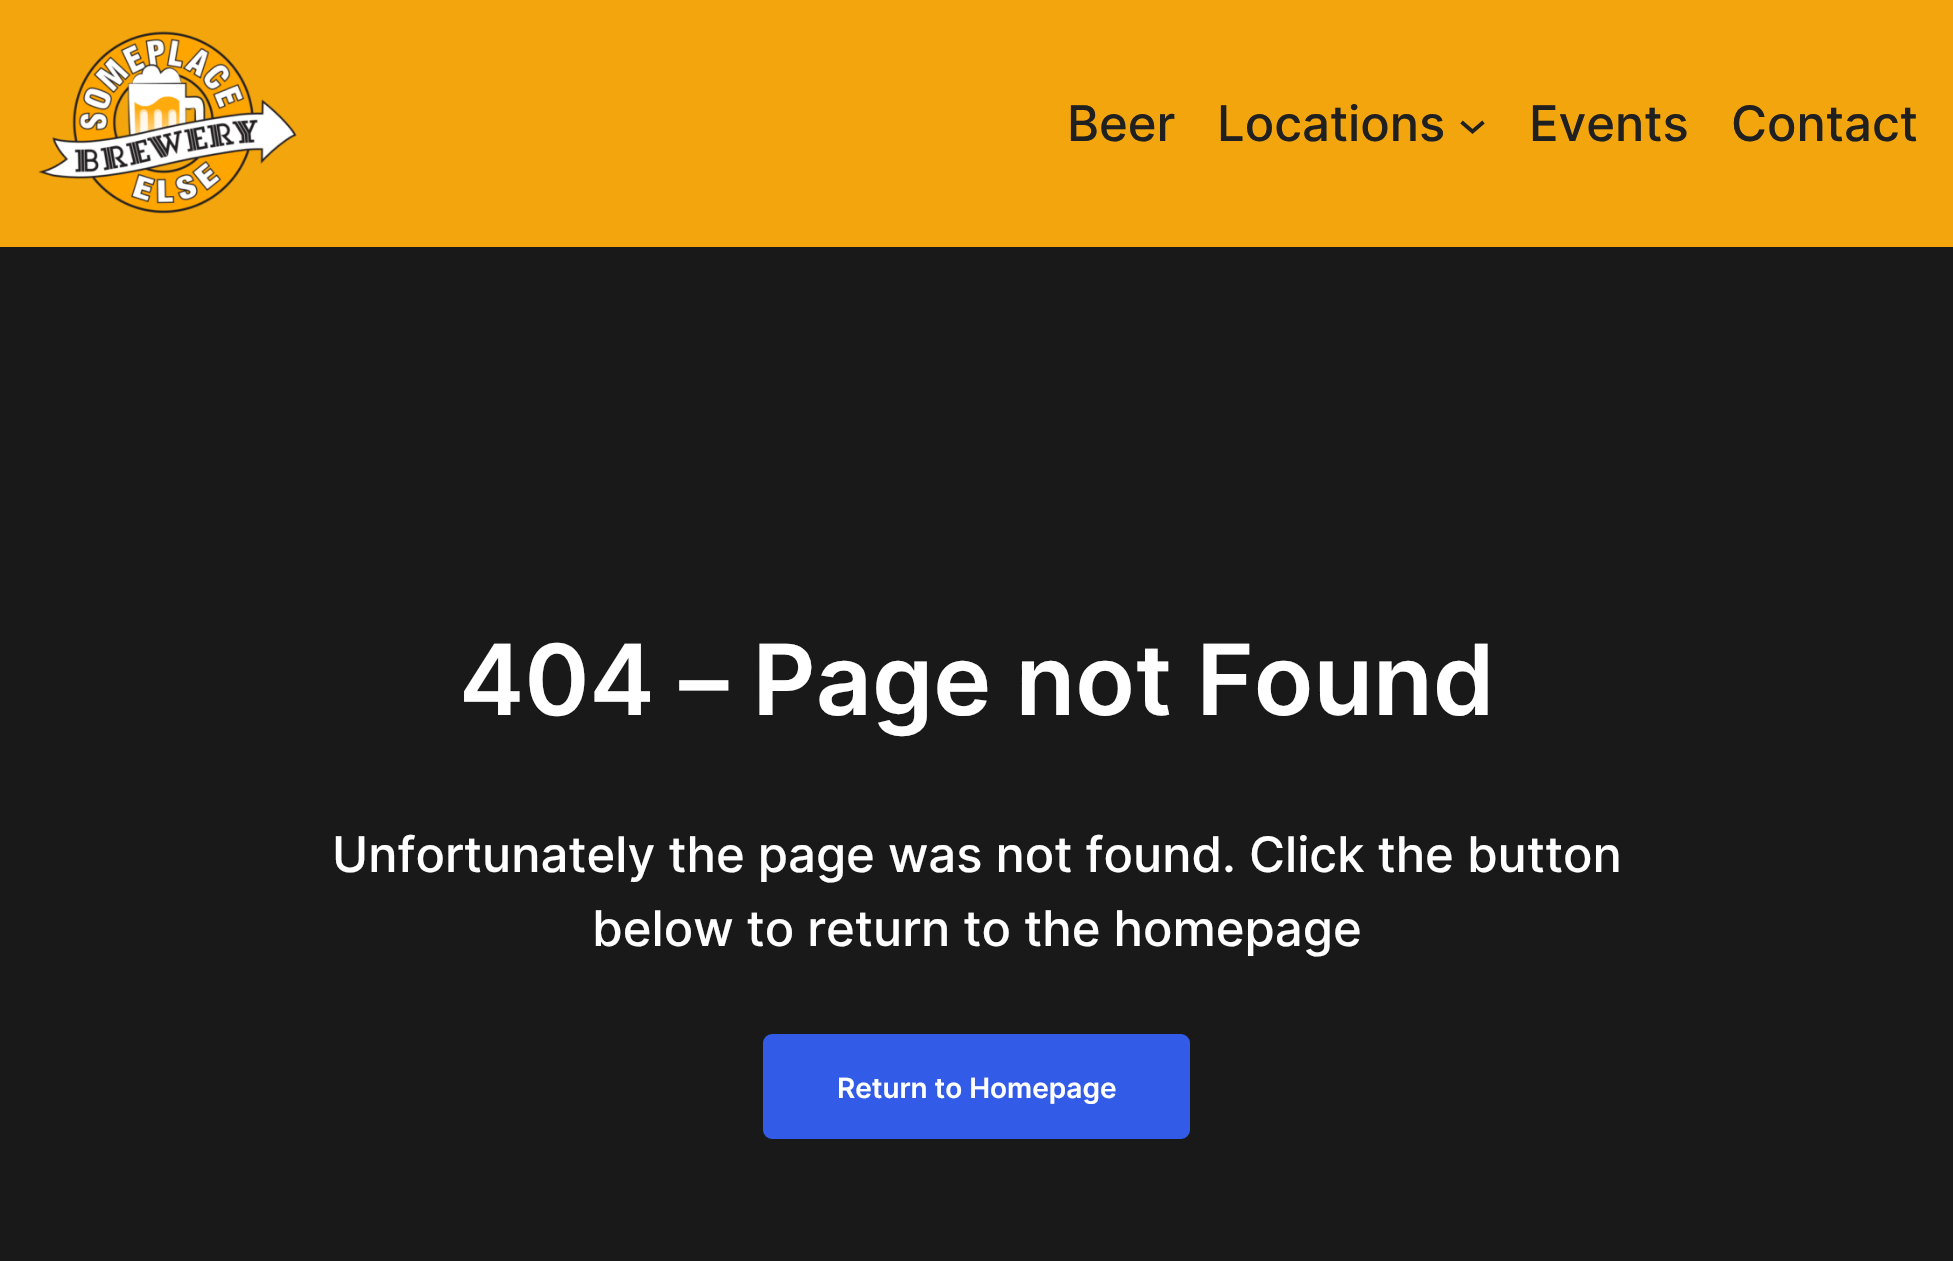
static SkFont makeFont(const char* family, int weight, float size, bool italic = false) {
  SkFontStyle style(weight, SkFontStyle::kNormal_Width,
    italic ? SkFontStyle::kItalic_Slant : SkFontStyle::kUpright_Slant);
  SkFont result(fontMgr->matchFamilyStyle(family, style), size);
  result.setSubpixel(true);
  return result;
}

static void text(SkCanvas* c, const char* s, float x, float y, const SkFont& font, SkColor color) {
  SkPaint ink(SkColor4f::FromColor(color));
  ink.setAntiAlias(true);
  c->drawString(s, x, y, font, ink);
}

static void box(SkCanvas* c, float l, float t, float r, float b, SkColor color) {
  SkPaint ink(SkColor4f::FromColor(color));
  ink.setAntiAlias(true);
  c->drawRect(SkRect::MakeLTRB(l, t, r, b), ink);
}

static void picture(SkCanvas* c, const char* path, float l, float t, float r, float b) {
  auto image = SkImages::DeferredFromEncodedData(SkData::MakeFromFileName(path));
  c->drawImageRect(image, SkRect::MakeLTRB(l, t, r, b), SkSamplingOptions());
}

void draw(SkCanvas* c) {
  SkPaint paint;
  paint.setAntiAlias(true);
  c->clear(0xfff2a50c);
  picture(c, "img_01.png", 38, 31, 297, 214);
  SkFont face1 = makeFont("Inter", 500, 49);
  text(c, "Beer", 1067, 141, face1, 0xff202020);
  text(c, "Locations", 1217, 141, face1, 0xff202020);
  paint.setStyle(SkPaint::kStroke_Style);
  paint.setStrokeWidth(3.7f);
  paint.setColor(0xff202020);
  c->drawPath(SkPathBuilder().moveTo(1461.5f, 122).lineTo(1472.5f, 131.5f).lineTo(1483.5f, 122).detach(), paint);
  text(c, "Events", 1529, 141, face1, 0xff202020);
  text(c, "Contact", 1731, 141, face1, 0xff202020);
  box(c, 0, 247, 1953, 1261, 0xff1a1919);
  SkFont face2 = makeFont("Inter", 600, 98);
  text(c, "404 – Page not Found", 459, 715, face2, 0xffffffff);
  text(c, "Unfortunately the page was not found. Click the button", 332, 872, face1, 0xffffffff);
  text(c, "below to return to the homepage", 592, 946, face1, 0xffffffff);
  paint.setStyle(SkPaint::kFill_Style);
  paint.setColor(0xff325ce8);
  c->drawRoundRect(SkRect::MakeLTRB(765, 1036, 1188, 1137), 7, 7, paint);
  paint.setStyle(SkPaint::kStroke_Style);
  paint.setStrokeWidth(4);
  c->drawRoundRect(SkRect::MakeLTRB(765, 1036, 1188, 1137), 7, 7, paint);
  SkFont face3 = makeFont("Inter", 600, 28);
  text(c, "Return to Homepage", 837, 1098, face3, 0xffffffff);
}
